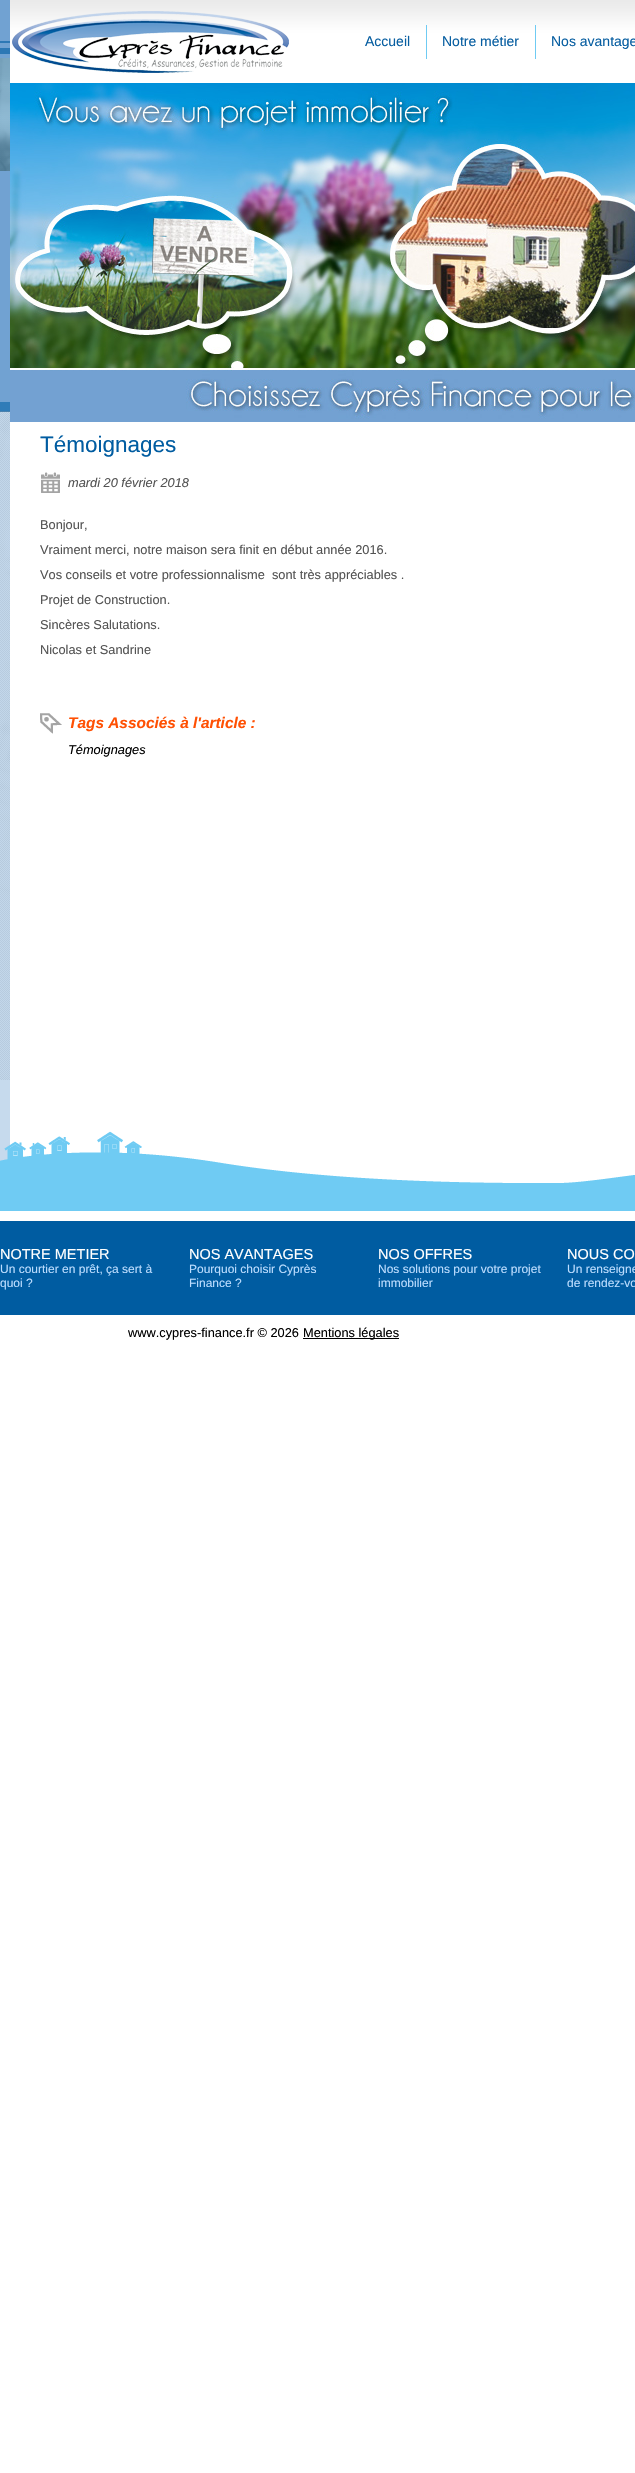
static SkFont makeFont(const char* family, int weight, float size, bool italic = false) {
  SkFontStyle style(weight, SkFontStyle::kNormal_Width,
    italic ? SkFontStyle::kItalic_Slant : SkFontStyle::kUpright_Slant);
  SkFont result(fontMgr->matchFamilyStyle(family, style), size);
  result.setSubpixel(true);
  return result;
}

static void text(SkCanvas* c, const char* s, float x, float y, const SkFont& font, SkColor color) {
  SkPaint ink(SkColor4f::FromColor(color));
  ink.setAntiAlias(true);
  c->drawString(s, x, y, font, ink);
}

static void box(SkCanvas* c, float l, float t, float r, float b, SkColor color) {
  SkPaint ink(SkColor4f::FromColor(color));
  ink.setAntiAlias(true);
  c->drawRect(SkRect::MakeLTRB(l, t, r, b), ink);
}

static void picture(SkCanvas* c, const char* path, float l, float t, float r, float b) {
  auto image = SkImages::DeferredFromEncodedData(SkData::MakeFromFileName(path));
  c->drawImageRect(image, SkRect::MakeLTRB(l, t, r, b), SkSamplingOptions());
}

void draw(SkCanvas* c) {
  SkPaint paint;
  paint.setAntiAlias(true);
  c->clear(0xffffffff);
  box(c, 0, 1080, 10, 1161, 0xffc6daed);
  picture(c, "img_01.png", 0, 412, 10, 1080);
  picture(c, "img_02.png", 0, 0, 10, 412);
  picture(c, "img_03.png", 0, 58, 10, 171);
  picture(c, "img_04.png", 10, 0, 635, 83);
  picture(c, "img_05.png", 12, 11, 289, 73);
  SkFont face1 = makeFont("Liberation Sans", 400, 14);
  text(c, "Accueil", 365, 46, face1, 0xff075ea1);
  box(c, 426, 25, 427, 59, 0xff6fcbf3);
  text(c, "Notre métier", 442, 46, face1, 0xff075ea1);
  box(c, 535, 25, 536, 59, 0xff6fcbf3);
  text(c, "Nos avantage", 551, 46, face1, 0xff075ea1);
  picture(c, "img_06.png", 10, 83, 635, 422);
  SkFont face2 = makeFont("Liberation Sans", 400, 22.5f);
  text(c, "Témoignages", 40, 452, face2, 0xff005ca1);
  picture(c, "img_07.png", 41, 472, 60, 493);
  SkFont face3 = makeFont("Liberation Sans", 400, 12.8f, true);
  text(c, "mardi 20 février 2018", 68, 487, face3, 0xff535353);
  SkFont face4 = makeFont("Liberation Sans", 400, 12.8f);
  text(c, "Bonjour,", 40, 529, face4, 0xff535353);
  text(c, "Vraiment merci, notre maison sera finit en début année 2016.", 40, 554, face4, 0xff535353);
  text(c, "Vos conseils et votre professionnalisme  sont très appréciables .", 40, 579, face4, 0xff535353);
  text(c, "Projet de Construction.", 40, 604, face4, 0xff535353);
  text(c, "Sincères Salutations.", 40, 629, face4, 0xff535353);
  text(c, "Nicolas et Sandrine", 40, 654, face4, 0xff535353);
  picture(c, "img_08.png", 40, 713, 62, 734);
  SkFont face5 = makeFont("Liberation Sans", 700, 15.4f, true);
  text(c, "Tags Associés à l'article :", 68, 728, face5, 0xffff5003);
  text(c, "Témoignages", 68, 754, face3, 0xff000000);
  picture(c, "img_09.png", 0, 1131, 635, 1211);
  box(c, 0, 1221, 635, 1315, 0xff005ca1);
  SkFont face6 = makeFont("Liberation Sans", 400, 14.5f);
  text(c, "NOTRE METIER", 0, 1259, face6, 0xffffffff);
  SkFont face7 = makeFont("Liberation Sans", 400, 12);
  text(c, "Un courtier en prêt, ça sert à", 0, 1273, face7, 0xffbcddff);
  text(c, "quoi ?", 0, 1287, face7, 0xffbcddff);
  text(c, "NOS AVANTAGES", 189, 1259, face6, 0xffffffff);
  text(c, "Pourquoi choisir Cyprès", 189, 1273, face7, 0xffbcddff);
  text(c, "Finance ?", 189, 1287, face7, 0xffbcddff);
  text(c, "NOS OFFRES", 378, 1259, face6, 0xffffffff);
  text(c, "Nos solutions pour votre projet", 378, 1273, face7, 0xffbcddff);
  text(c, "immobilier", 378, 1287, face7, 0xffbcddff);
  text(c, "NOUS CO", 567, 1259, face6, 0xffffffff);
  text(c, "Un renseigne", 567, 1273, face7, 0xffbcddff);
  text(c, "de rendez-vo", 567, 1287, face7, 0xffbcddff);
  text(c, "www.cypres-finance.fr © 2026", 128, 1337, face4, 0xff000000);
  box(c, 303, 1338, 399, 1339, 0xff000000);
  text(c, "Mentions légales", 303, 1337, face4, 0xff000000);
}
